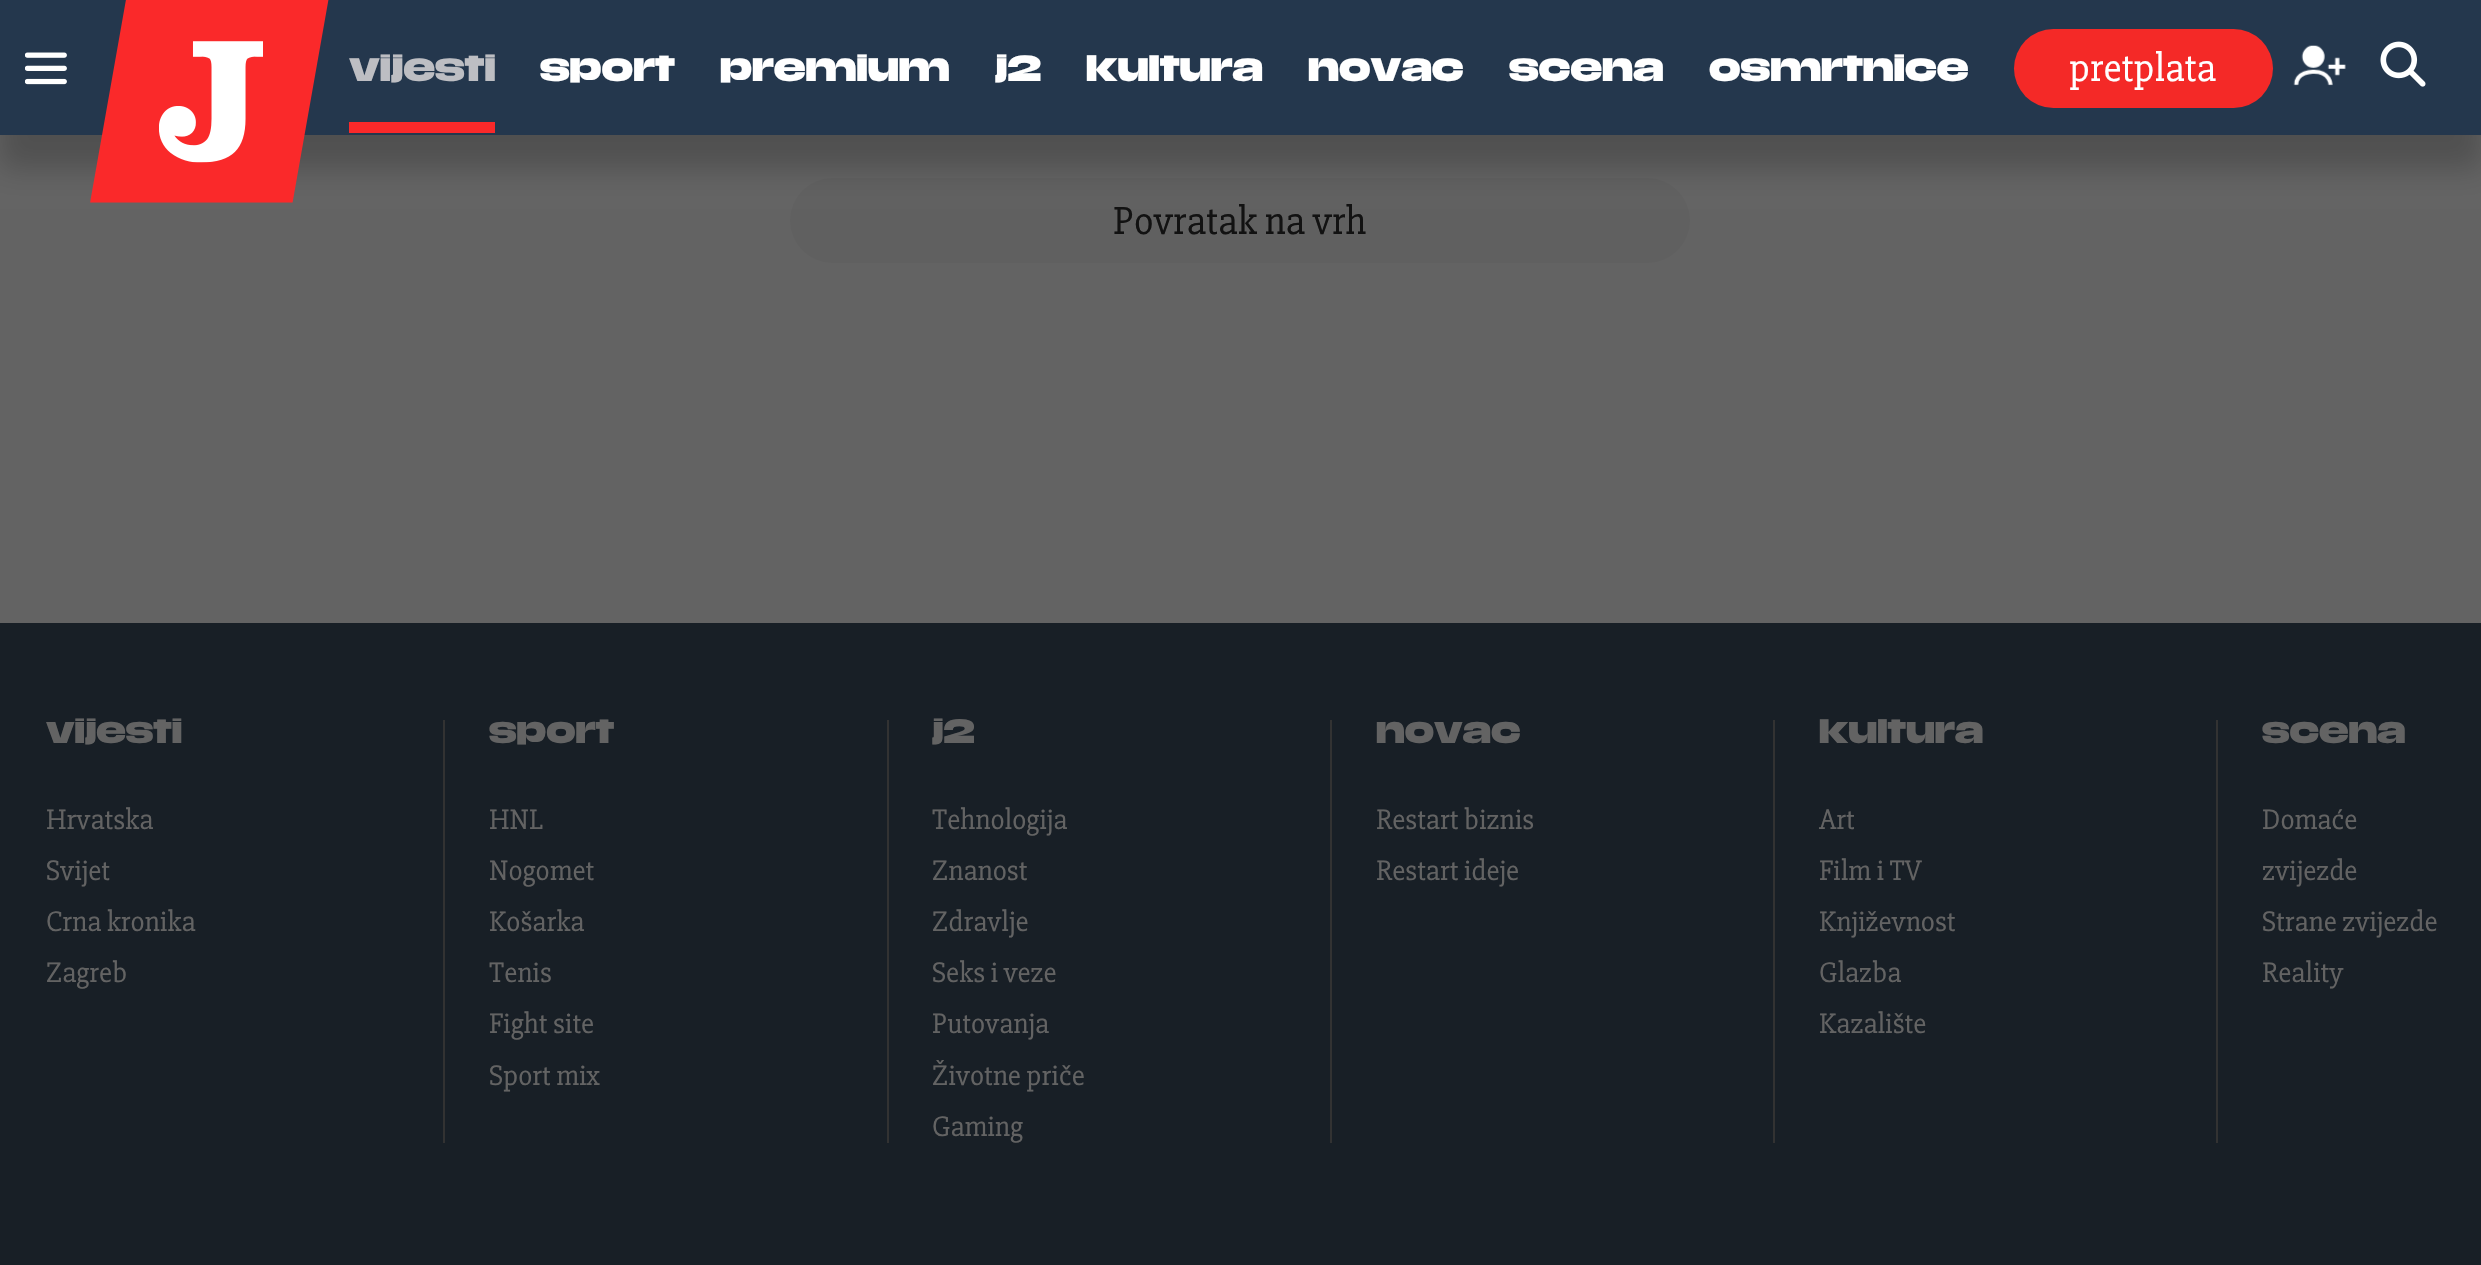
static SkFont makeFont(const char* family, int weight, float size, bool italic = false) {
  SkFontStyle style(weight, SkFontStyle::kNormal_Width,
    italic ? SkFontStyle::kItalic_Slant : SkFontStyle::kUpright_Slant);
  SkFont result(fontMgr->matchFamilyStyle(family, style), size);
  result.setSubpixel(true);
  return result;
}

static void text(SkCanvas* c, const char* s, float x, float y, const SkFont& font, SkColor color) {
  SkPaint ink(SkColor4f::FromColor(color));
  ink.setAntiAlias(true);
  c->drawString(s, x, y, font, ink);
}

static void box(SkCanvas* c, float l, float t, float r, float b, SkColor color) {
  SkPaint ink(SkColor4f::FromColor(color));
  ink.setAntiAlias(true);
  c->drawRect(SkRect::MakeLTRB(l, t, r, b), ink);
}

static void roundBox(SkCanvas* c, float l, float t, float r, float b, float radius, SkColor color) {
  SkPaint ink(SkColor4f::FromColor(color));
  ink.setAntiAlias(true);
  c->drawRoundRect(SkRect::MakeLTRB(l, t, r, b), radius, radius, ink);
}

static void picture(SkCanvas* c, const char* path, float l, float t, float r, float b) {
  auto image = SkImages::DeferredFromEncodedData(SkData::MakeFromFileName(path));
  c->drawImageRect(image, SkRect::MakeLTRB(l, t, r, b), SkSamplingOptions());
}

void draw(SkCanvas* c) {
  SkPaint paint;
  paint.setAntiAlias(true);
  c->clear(0xff636363);
  roundBox(c, 790, 178, 1690, 263, 42.5f, 0xff606060);
  paint.setColor(0x33050505);
  paint.setMaskFilter(SkMaskFilter::MakeBlur(kNormal_SkBlurStyle, 13.5f));
  c->drawRect(SkRect::MakeLTRB(0, 34, 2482, 169), paint);
  paint.setMaskFilter(nullptr);
  box(c, 0, 0, 2481, 135, 0xff24374d);
  picture(c, "img_01.png", 25, 52, 67, 85);
  picture(c, "img_02.png", 90, 0, 329, 203);
  box(c, 349, 122, 495, 133, 0xfffa292a);
  SkFont face1 = makeFont("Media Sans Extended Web", 900, 31.5f);
  text(c, "vijesti", 349, 81, face1, 0xffbdbec3);
  text(c, "sport", 540, 81, face1, 0xffffffff);
  text(c, "premium", 720, 81, face1, 0xffffffff);
  text(c, "j2", 995, 81, face1, 0xffffffff);
  text(c, "kultura", 1086, 81, face1, 0xffffffff);
  text(c, "novac", 1308, 81, face1, 0xffffffff);
  text(c, "scena", 1509, 81, face1, 0xffffffff);
  text(c, "osmrtnice", 1709, 81, face1, 0xffffffff);
  roundBox(c, 2014, 29, 2273, 108, 39.5f, 0xfff42927);
  SkFont face2 = makeFont("Slabo 27px", 400, 40.5f);
  text(c, "pretplata", 2069, 81, face2, 0xffffffff);
  picture(c, "img_03.png", 2293, 45, 2346, 86);
  picture(c, "img_04.png", 2380, 41, 2426, 87);
  text(c, "Povratak na vrh", 1113, 234, face2, 0xff121212);
  box(c, 0, 623, 2481, 1265, 0xff181f26);
  SkFont face3 = makeFont("Media Sans Extended Web", 900, 29.25f);
  text(c, "vijesti", 46, 743, face3, 0xff636363);
  SkFont face4 = makeFont("Slabo 27px", 400, 29.25f);
  text(c, "Hrvatska", 46, 829, face4, 0xff636363);
  text(c, "Svijet", 46, 880, face4, 0xff636363);
  text(c, "Crna kronika", 46, 931, face4, 0xff636363);
  text(c, "Zagreb", 46, 982, face4, 0xff636363);
  box(c, 443, 720, 445, 1143, 0xff323232);
  text(c, "sport", 489, 743, face3, 0xff636363);
  text(c, "HNL", 489, 829, face4, 0xff636363);
  text(c, "Nogomet", 489, 880, face4, 0xff636363);
  text(c, "Košarka", 489, 931, face4, 0xff636363);
  text(c, "Tenis", 489, 982, face4, 0xff636363);
  text(c, "Fight site", 489, 1033, face4, 0xff636363);
  text(c, "Sport mix", 489, 1085, face4, 0xff636363);
  box(c, 887, 720, 889, 1143, 0xff323232);
  text(c, "j2", 932, 743, face3, 0xff636363);
  text(c, "Tehnologija", 932, 829, face4, 0xff636363);
  text(c, "Znanost", 932, 880, face4, 0xff636363);
  text(c, "Zdravlje", 932, 931, face4, 0xff636363);
  text(c, "Seks i veze", 932, 982, face4, 0xff636363);
  text(c, "Putovanja", 932, 1033, face4, 0xff636363);
  text(c, "Životne priče", 932, 1085, face4, 0xff636363);
  text(c, "Gaming", 932, 1136, face4, 0xff636363);
  box(c, 1330, 720, 1332, 1143, 0xff323232);
  text(c, "novac", 1376, 743, face3, 0xff636363);
  text(c, "Restart biznis", 1376, 829, face4, 0xff636363);
  text(c, "Restart ideje", 1376, 880, face4, 0xff636363);
  box(c, 1773, 720, 1775, 1143, 0xff323232);
  text(c, "kultura", 1819, 743, face3, 0xff636363);
  text(c, "Art", 1819, 829, face4, 0xff636363);
  text(c, "Film i TV", 1819, 880, face4, 0xff636363);
  text(c, "Književnost", 1819, 931, face4, 0xff636363);
  text(c, "Glazba", 1819, 982, face4, 0xff636363);
  text(c, "Kazalište", 1819, 1033, face4, 0xff636363);
  box(c, 2216, 720, 2218, 1143, 0xff323232);
  text(c, "scena", 2262, 743, face3, 0xff636363);
  text(c, "Domaće", 2262, 829, face4, 0xff636363);
  text(c, "zvijezde", 2262, 880, face4, 0xff636363);
  text(c, "Strane zvijezde", 2262, 931, face4, 0xff636363);
  text(c, "Reality", 2262, 982, face4, 0xff636363);
}
